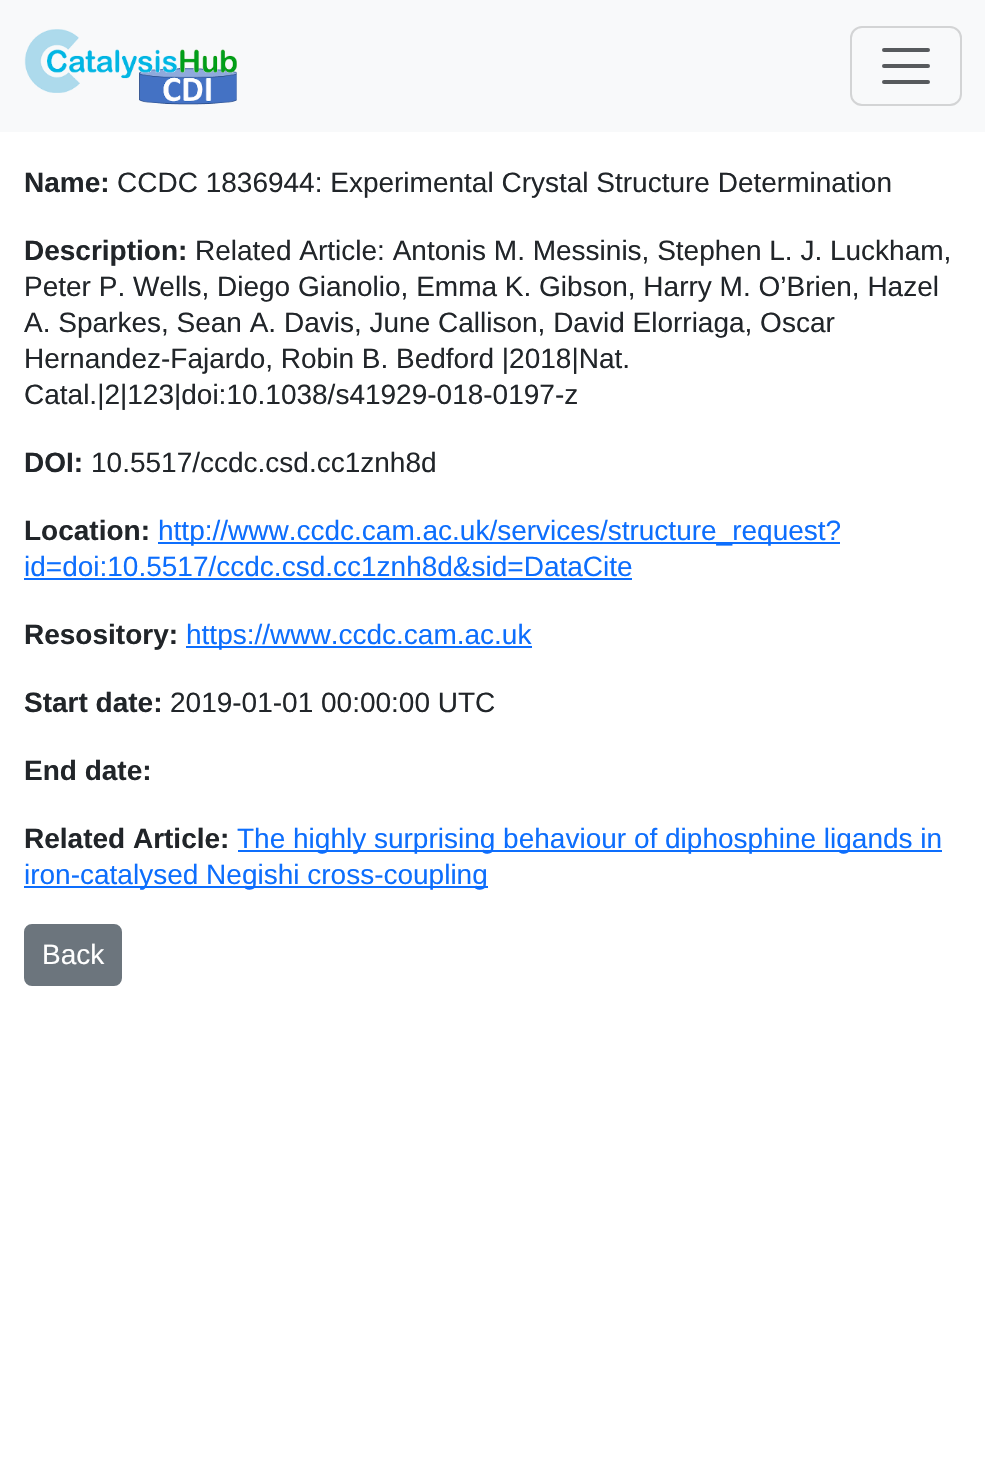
static SkFont makeFont(const char* family, int weight, float size, bool italic = false) {
  SkFontStyle style(weight, SkFontStyle::kNormal_Width,
    italic ? SkFontStyle::kItalic_Slant : SkFontStyle::kUpright_Slant);
  SkFont result(fontMgr->matchFamilyStyle(family, style), size);
  result.setSubpixel(true);
  return result;
}

static void text(SkCanvas* c, const char* s, float x, float y, const SkFont& font, SkColor color) {
  SkPaint ink(SkColor4f::FromColor(color));
  ink.setAntiAlias(true);
  c->drawString(s, x, y, font, ink);
}

static void box(SkCanvas* c, float l, float t, float r, float b, SkColor color) {
  SkPaint ink(SkColor4f::FromColor(color));
  ink.setAntiAlias(true);
  c->drawRect(SkRect::MakeLTRB(l, t, r, b), ink);
}

static void picture(SkCanvas* c, const char* path, float l, float t, float r, float b) {
  auto image = SkImages::DeferredFromEncodedData(SkData::MakeFromFileName(path));
  c->drawImageRect(image, SkRect::MakeLTRB(l, t, r, b), SkSamplingOptions());
}

void draw(SkCanvas* c) {
  SkPaint paint;
  paint.setAntiAlias(true);
  c->clear(0xffffffff);
  box(c, 0, 0, 985, 132, 0xfff8f9fa);
  picture(c, "img_01.png", 24, 29, 237, 105);
  paint.setStyle(SkPaint::kStroke_Style);
  paint.setStrokeWidth(2);
  paint.setColor(0xffd3d4d5);
  c->drawRoundRect(SkRect::MakeLTRB(851, 27, 961, 105), 11, 11, paint);
  paint.setStrokeWidth(4);
  paint.setStrokeCap(SkPaint::kRound_Cap);
  paint.setColor(0xff575a5d);
  c->drawPath(SkPathBuilder().moveTo(884, 50).lineTo(928, 50).moveTo(884, 66).lineTo(928, 66).moveTo(884, 82).lineTo(928, 82).detach(), paint);
  SkFont face1 = makeFont("Liberation Sans", 700, 28);
  text(c, "Name:", 24, 192, face1, 0xff212529);
  SkFont face2 = makeFont("Liberation Sans", 400, 28);
  text(c, "CCDC 1836944: Experimental Crystal Structure Determination", 117, 192, face2, 0xff212529);
  text(c, "Description:", 24, 260, face1, 0xff212529);
  text(c, "Related Article: Antonis M. Messinis, Stephen L. J. Luckham,", 195, 260, face2, 0xff212529);
  text(c, "Peter P. Wells, Diego Gianolio, Emma K. Gibson, Harry M. O’Brien, Hazel", 24, 296, face2, 0xff212529);
  text(c, "A. Sparkes, Sean A. Davis, June Callison, David Elorriaga, Oscar", 24, 332, face2, 0xff212529);
  text(c, "Hernandez-Fajardo, Robin B. Bedford |2018|Nat.", 24, 368, face2, 0xff212529);
  text(c, "Catal.|2|123|doi:10.1038/s41929-018-0197-z", 24, 404, face2, 0xff212529);
  text(c, "DOI:", 24, 472, face1, 0xff212529);
  text(c, "10.5517/ccdc.csd.cc1znh8d", 91, 472, face2, 0xff212529);
  text(c, "Location:", 24, 540, face1, 0xff212529);
  box(c, 158, 542, 840, 544, 0xff0d6efd);
  text(c, "http://www.ccdc.cam.ac.uk/services/structure_request?", 158, 540, face2, 0xff0d6efd);
  text(c, "id=doi:10.5517/ccdc.csd.cc1znh8d&sid=DataCite", 24, 576, face2, 0xff0d6efd);
  box(c, 24, 578, 632, 580, 0xff0d6efd);
  text(c, "Resository:", 24, 644, face1, 0xff212529);
  box(c, 186, 646, 532, 648, 0xff0d6efd);
  text(c, "https://www.ccdc.cam.ac.uk", 186, 644, face2, 0xff0d6efd);
  text(c, "Start date:", 24, 712, face1, 0xff212529);
  text(c, "2019-01-01 00:00:00 UTC", 170, 712, face2, 0xff212529);
  text(c, "End date:", 24, 780, face1, 0xff212529);
  text(c, "Related Article:", 24, 848, face1, 0xff212529);
  box(c, 238, 850, 942, 852, 0xff0d6efd);
  text(c, "The highly surprising behaviour of diphosphine ligands in", 237, 848, face2, 0xff0d6efd);
  box(c, 24, 886, 488, 888, 0xff0d6efd);
  text(c, "iron-catalysed Negishi cross-coupling", 24, 884, face2, 0xff0d6efd);
  paint.setStyle(SkPaint::kFill_Style);
  paint.setColor(0xff6c757d);
  c->drawRoundRect(SkRect::MakeLTRB(25, 925, 121, 985), 7, 7, paint);
  paint.setStyle(SkPaint::kStroke_Style);
  paint.setStrokeWidth(2);
  paint.setStrokeCap(SkPaint::kButt_Cap);
  c->drawRoundRect(SkRect::MakeLTRB(25, 925, 121, 985), 7, 7, paint);
  text(c, "Back", 42, 964, face2, 0xffffffff);
}
